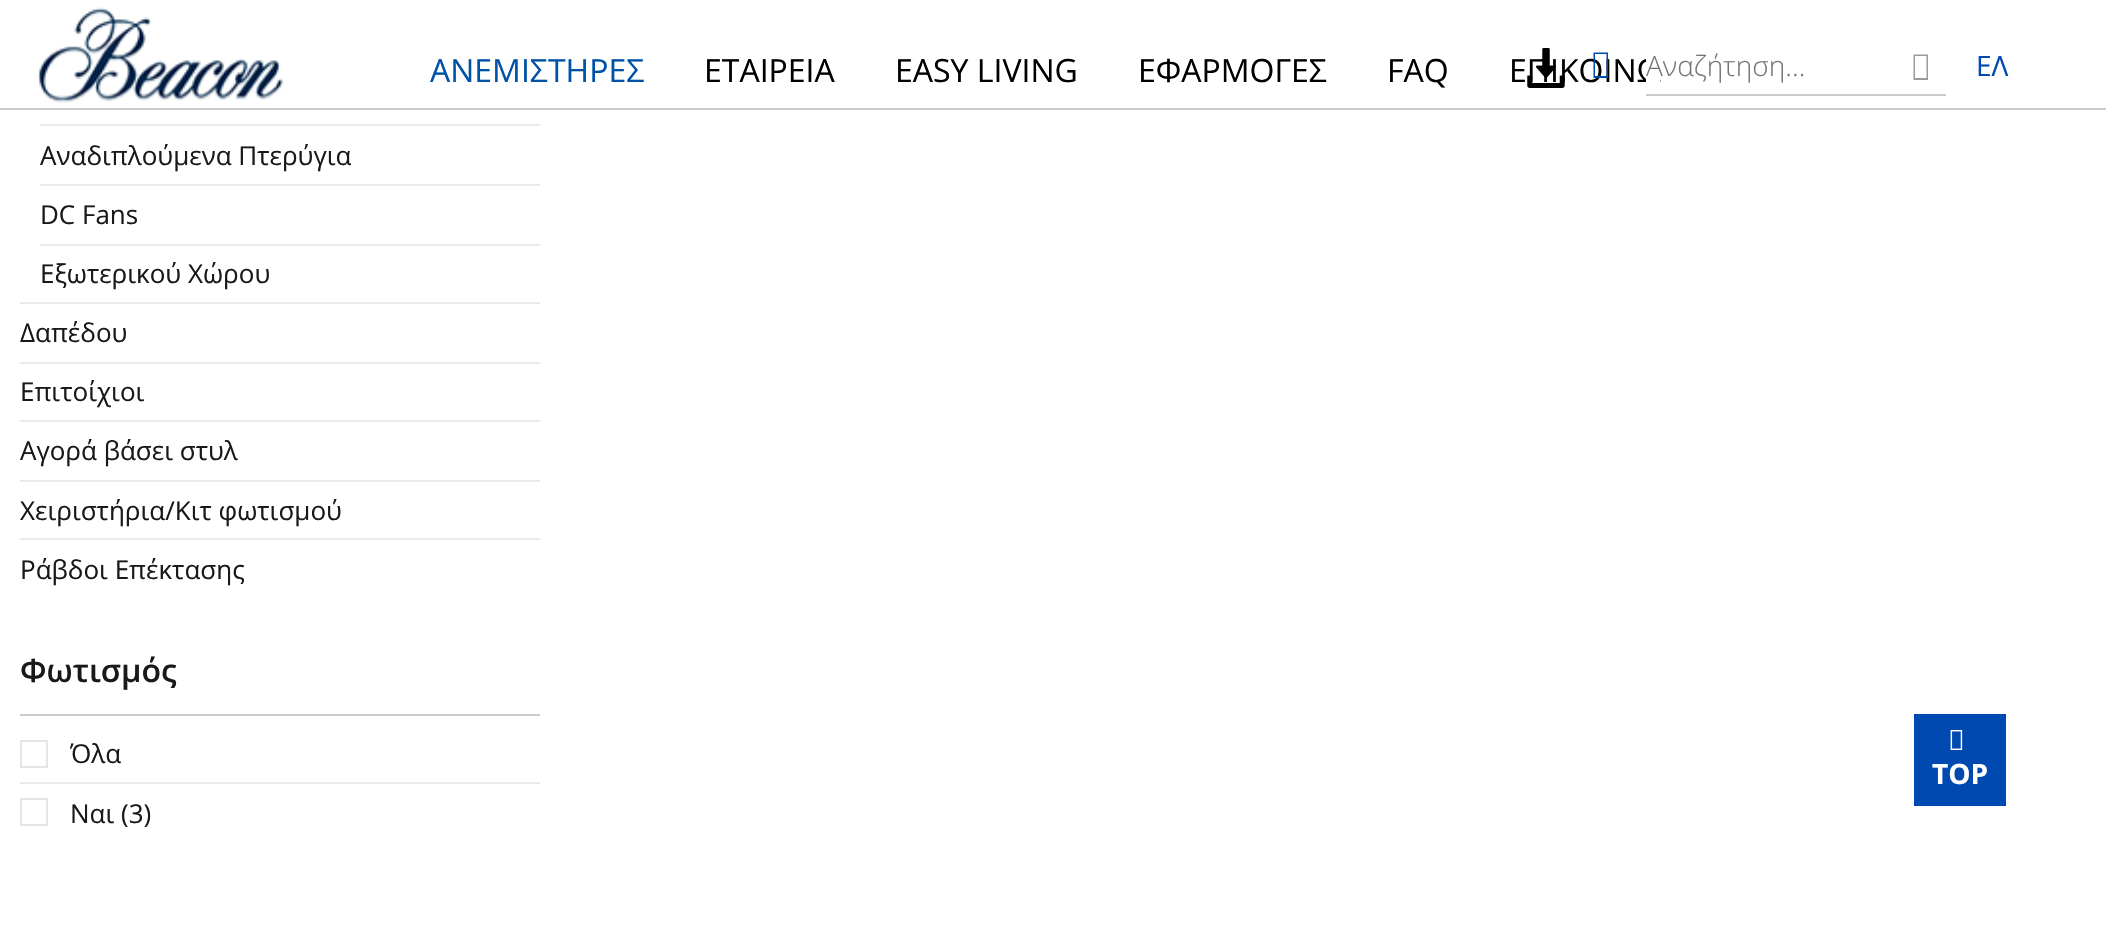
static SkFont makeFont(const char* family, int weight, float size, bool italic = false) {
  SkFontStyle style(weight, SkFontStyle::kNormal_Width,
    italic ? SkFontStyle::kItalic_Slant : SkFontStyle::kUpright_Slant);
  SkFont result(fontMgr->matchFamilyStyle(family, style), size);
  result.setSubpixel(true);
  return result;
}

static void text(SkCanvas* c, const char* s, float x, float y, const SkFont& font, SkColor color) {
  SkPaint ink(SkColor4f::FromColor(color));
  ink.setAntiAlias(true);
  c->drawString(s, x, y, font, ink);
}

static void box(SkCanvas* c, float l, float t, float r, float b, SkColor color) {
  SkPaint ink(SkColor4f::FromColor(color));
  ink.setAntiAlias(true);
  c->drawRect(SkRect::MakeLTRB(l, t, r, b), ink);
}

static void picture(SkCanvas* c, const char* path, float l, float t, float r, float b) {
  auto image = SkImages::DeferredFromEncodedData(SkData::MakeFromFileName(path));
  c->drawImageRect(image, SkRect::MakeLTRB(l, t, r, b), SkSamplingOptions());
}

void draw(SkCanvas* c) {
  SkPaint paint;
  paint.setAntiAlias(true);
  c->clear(0xffffffff);
  box(c, 0, 108, 2106, 110, 0xffcccccc);
  picture(c, "img_01.png", 37, 7, 283, 103);
  SkFont face1 = makeFont("Open Sans", 400, 32);
  text(c, "ΕΠΙΚΟΙΝΩ", 1509, 82, face1, 0xff000000);
  picture(c, "img_02.png", 1527, 48, 1565, 88);
  paint.setColor(0xff0049b1);
  c->drawPath(SkPathBuilder().moveTo(1593.5f, 78).lineTo(1593.5f, 52.5f).lineTo(1608, 52.5f).lineTo(1608, 78).close().moveTo(1595, 76).lineTo(1606.5f, 76).lineTo(1606.5f, 54).lineTo(1595, 54).close().detach(), paint);
  box(c, 1646, 58, 1660, 82, 0xffffffff);
  box(c, 1646, 94, 1946, 96, 0xffcccccc);
  SkFont face2 = makeFont("Open Sans", 300, 28);
  text(c, "Αναζήτηση...", 1646, 76, face2, 0xff757575);
  paint.setColor(0xff9b9b9b);
  c->drawPath(SkPathBuilder().moveTo(1913.5f, 80).lineTo(1913.5f, 54.5f).lineTo(1928, 54.5f).lineTo(1928, 80).close().moveTo(1915, 78).lineTo(1926.5f, 78).lineTo(1926.5f, 56).lineTo(1915, 56).close().detach(), paint);
  SkFont face3 = makeFont("Open Sans", 400, 28);
  text(c, "ΕΛ", 1976, 76, face3, 0xff0049b1);
  text(c, "ΑΝΕΜΙΣΤΗΡΕΣ", 430, 82, face1, 0xff0052a6);
  text(c, "ΕΤΑΙΡΕΙΑ", 704, 82, face1, 0xff000000);
  text(c, "EASY LIVING", 895, 82, face1, 0xff000000);
  text(c, "ΕΦΑΡΜΟΓΕΣ", 1138, 82, face1, 0xff000000);
  text(c, "FAQ", 1387, 82, face1, 0xff000000);
  box(c, 40, 124, 540, 126, 0xffebebeb);
  SkFont face4 = makeFont("Open Sans", 400, 26);
  text(c, "Aναδιπλούμενα Πτερύγια", 40, 165, face4, 0xff191919);
  box(c, 40, 184, 540, 186, 0xffebebeb);
  text(c, "DC Fans", 40, 224, face4, 0xff191919);
  box(c, 40, 244, 540, 246, 0xffebebeb);
  text(c, "Εξωτερικού Χώρου", 40, 283, face4, 0xff191919);
  box(c, 20, 302, 540, 304, 0xffebebeb);
  text(c, "Δαπέδου", 20, 342, face4, 0xff191919);
  box(c, 20, 362, 540, 364, 0xffebebeb);
  text(c, "Επιτοίχιοι", 20, 401, face4, 0xff191919);
  box(c, 20, 420, 540, 422, 0xffebebeb);
  text(c, "Αγορά βάσει στυλ", 20, 460, face4, 0xff191919);
  box(c, 20, 480, 540, 482, 0xffebebeb);
  text(c, "Χειριστήρια/Κιτ φωτισμού", 20, 520, face4, 0xff191919);
  box(c, 20, 538, 540, 540, 0xffebebeb);
  text(c, "Ράβδοι Επέκτασης", 20, 579, face4, 0xff191919);
  box(c, 20, 714, 540, 716, 0xffcccccc);
  SkFont face5 = makeFont("Open Sans", 600, 32);
  text(c, "Φωτισμός", 20, 682, face5, 0xff191919);
  paint.setStyle(SkPaint::kStroke_Style);
  paint.setStrokeWidth(2);
  paint.setColor(0xffe5e5e5);
  c->drawRect(SkRect::MakeLTRB(21, 741, 47, 767), paint);
  text(c, "Όλα", 70, 763, face4, 0xff191919);
  box(c, 20, 782, 540, 784, 0xffebebeb);
  c->drawRect(SkRect::MakeLTRB(21, 799, 47, 825), paint);
  text(c, "Ναι (3)", 70, 823, face4, 0xff191919);
  box(c, 1914, 714, 2006, 806, 0xff0049b1);
  picture(c, "img_03.png", 1950, 730, 1963, 750);
  SkFont face6 = makeFont("Open Sans", 700, 28);
  text(c, "TOP", 1932, 784, face6, 0xffffffff);
}
